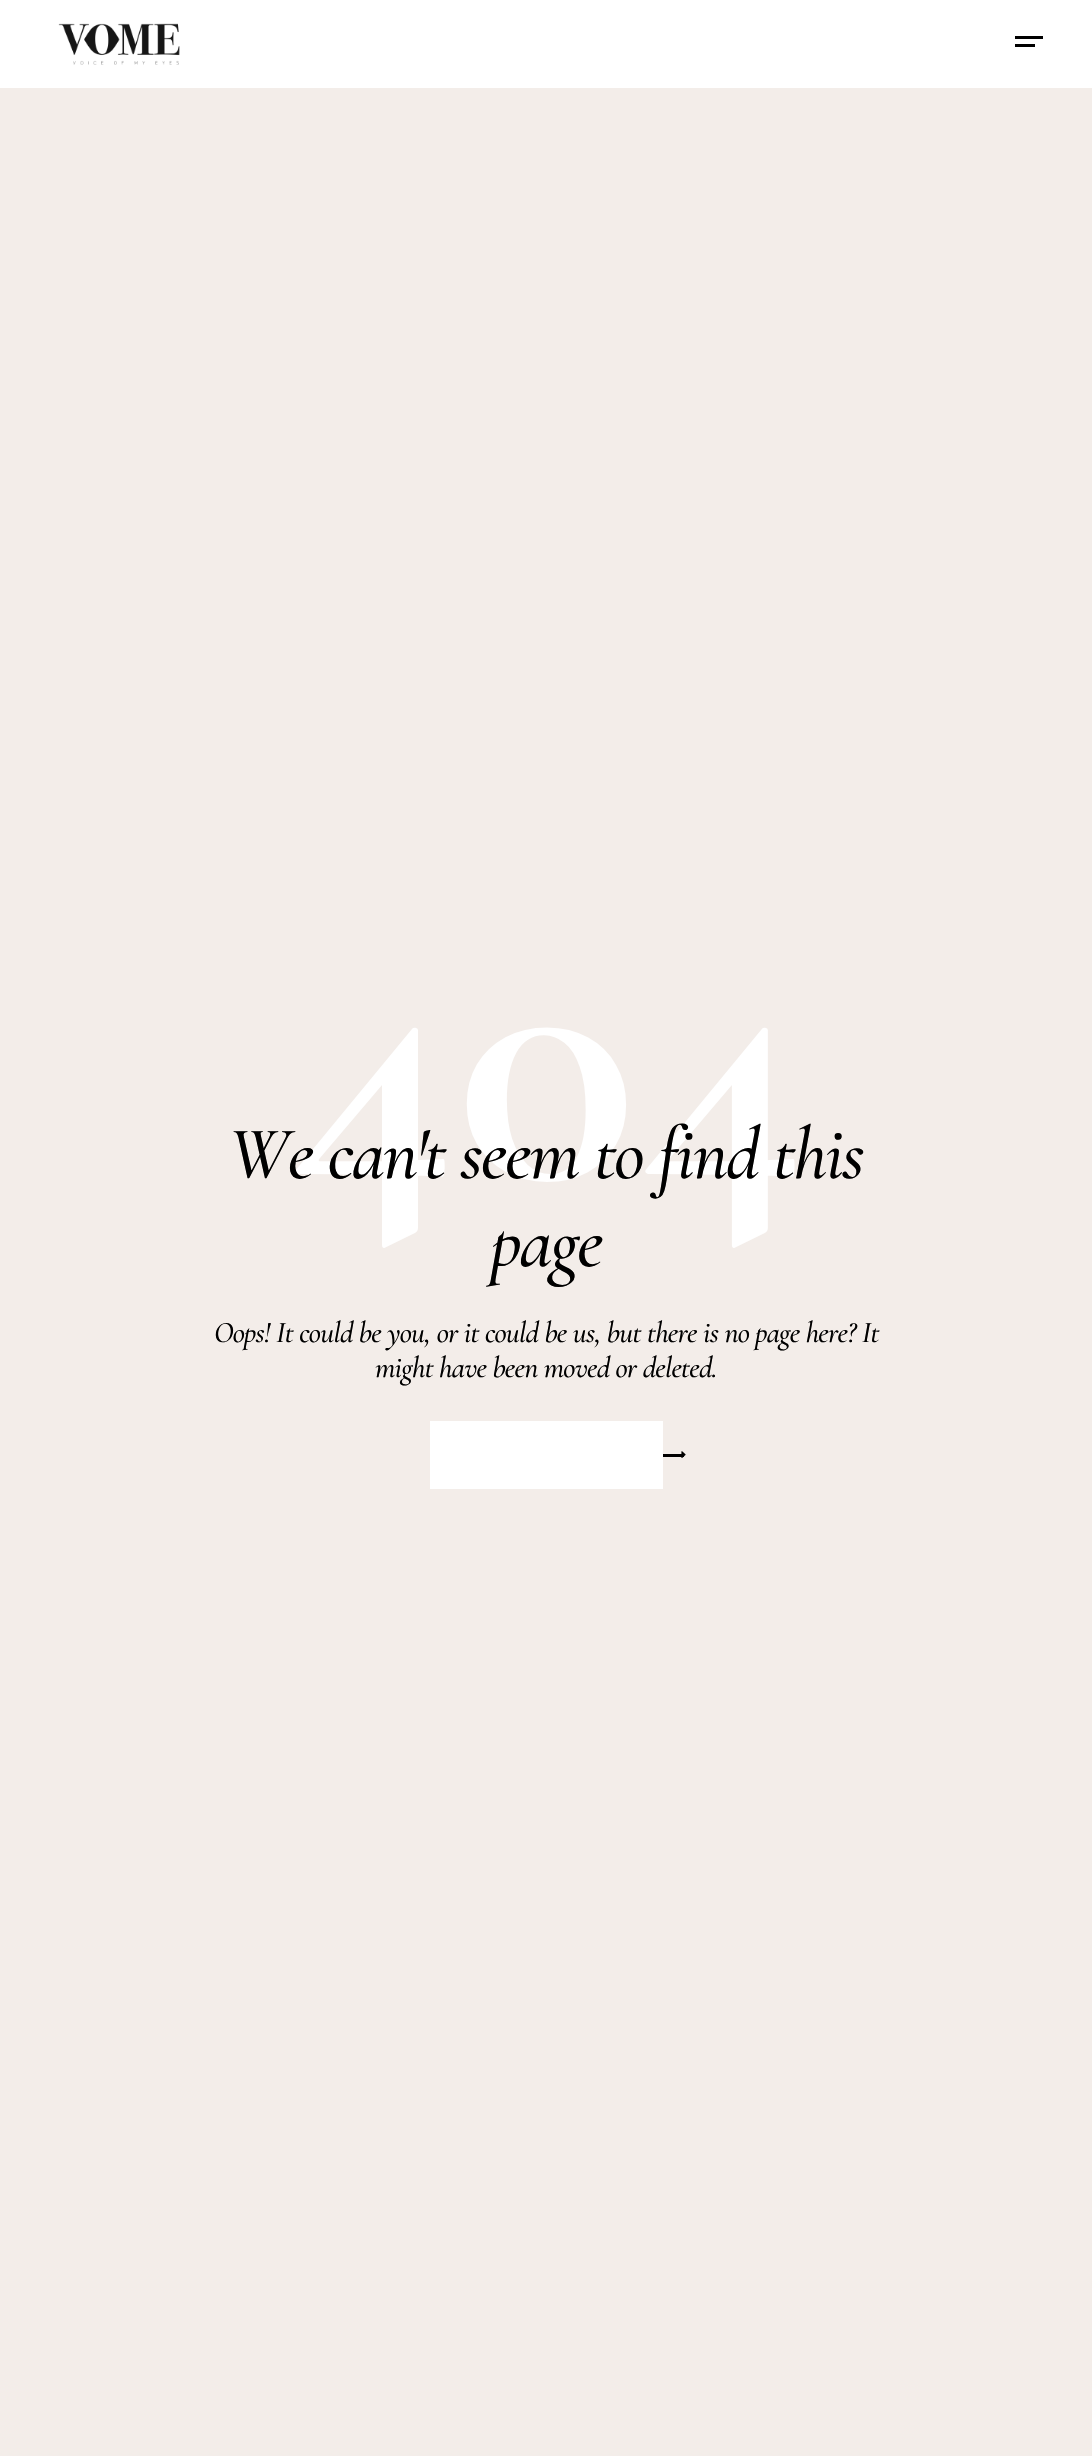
static SkFont makeFont(const char* family, int weight, float size, bool italic = false) {
  SkFontStyle style(weight, SkFontStyle::kNormal_Width,
    italic ? SkFontStyle::kItalic_Slant : SkFontStyle::kUpright_Slant);
  SkFont result(fontMgr->matchFamilyStyle(family, style), size);
  result.setSubpixel(true);
  return result;
}

static void text(SkCanvas* c, const char* s, float x, float y, const SkFont& font, SkColor color) {
  SkPaint ink(SkColor4f::FromColor(color));
  ink.setAntiAlias(true);
  c->drawString(s, x, y, font, ink);
}

static void spacedText(SkCanvas* c, const char* s, float x, float y, const SkFont& font, const SkPaint& ink, float letter, float word) {
  std::vector<SkGlyphID> glyphs(font.countText(s, strlen(s), SkTextEncoding::kUTF8));
  std::vector<float> xs(glyphs.size());
  font.textToGlyphs(s, strlen(s), SkTextEncoding::kUTF8, glyphs);
  font.getXPos(glyphs, xs, x);
  float extra = 0;
  for (size_t i = 0; i < glyphs.size(); i++) {
    xs[i] += extra;
    extra += letter + word * (glyphs[i] == font.unicharToGlyph(' '));
  }
  c->drawTextBlob(SkTextBlob::MakeFromPosHGlyphs(glyphs, xs, y, font), 0, 0, ink);
}

static void box(SkCanvas* c, float l, float t, float r, float b, SkColor color) {
  SkPaint ink(SkColor4f::FromColor(color));
  ink.setAntiAlias(true);
  c->drawRect(SkRect::MakeLTRB(l, t, r, b), ink);
}

static void picture(SkCanvas* c, const char* path, float l, float t, float r, float b) {
  auto image = SkImages::DeferredFromEncodedData(SkData::MakeFromFileName(path));
  c->drawImageRect(image, SkRect::MakeLTRB(l, t, r, b), SkSamplingOptions());
}

void draw(SkCanvas* c) {
  SkPaint paint;
  paint.setAntiAlias(true);
  c->clear(0xfff3ede9);
  box(c, 0, 0, 1092, 88, 0xffffffff);
  picture(c, "img_01.png", 58, 23, 180, 65);
  box(c, 1015, 36, 1043, 39, 0xff000000);
  box(c, 1015, 44, 1035, 47, 0xff000000);
  SkFont face1 = makeFont("Cormorant", 700, 375);
  text(c, "404", 286, 1177, face1, 0xffffffff);
  SkFont face2 = makeFont("Cormorant", 300, 75, true);
  paint.setColor(0xff000000);
  spacedText(c, "We can't seem to find this", 228, 1178, face2, paint, -1.9f, 0);
  spacedText(c, "page", 491, 1266, face2, paint, -1.9f, 0);
  SkFont face3 = makeFont("Cormorant", 300, 30, true);
  spacedText(c, "Oops! It could be you, or it could be us, but there is no page here? It", 214, 1342, face3, paint, -0.75f, 0);
  spacedText(c, "might have been moved or deleted.", 375, 1377, face3, paint, -0.75f, 0);
  box(c, 430, 1421, 663, 1489, 0xffffffff);
  picture(c, "img_02.png", 681, 1451, 686, 1458);
  box(c, 663, 1454, 684, 1457, 0xff000000);
}
